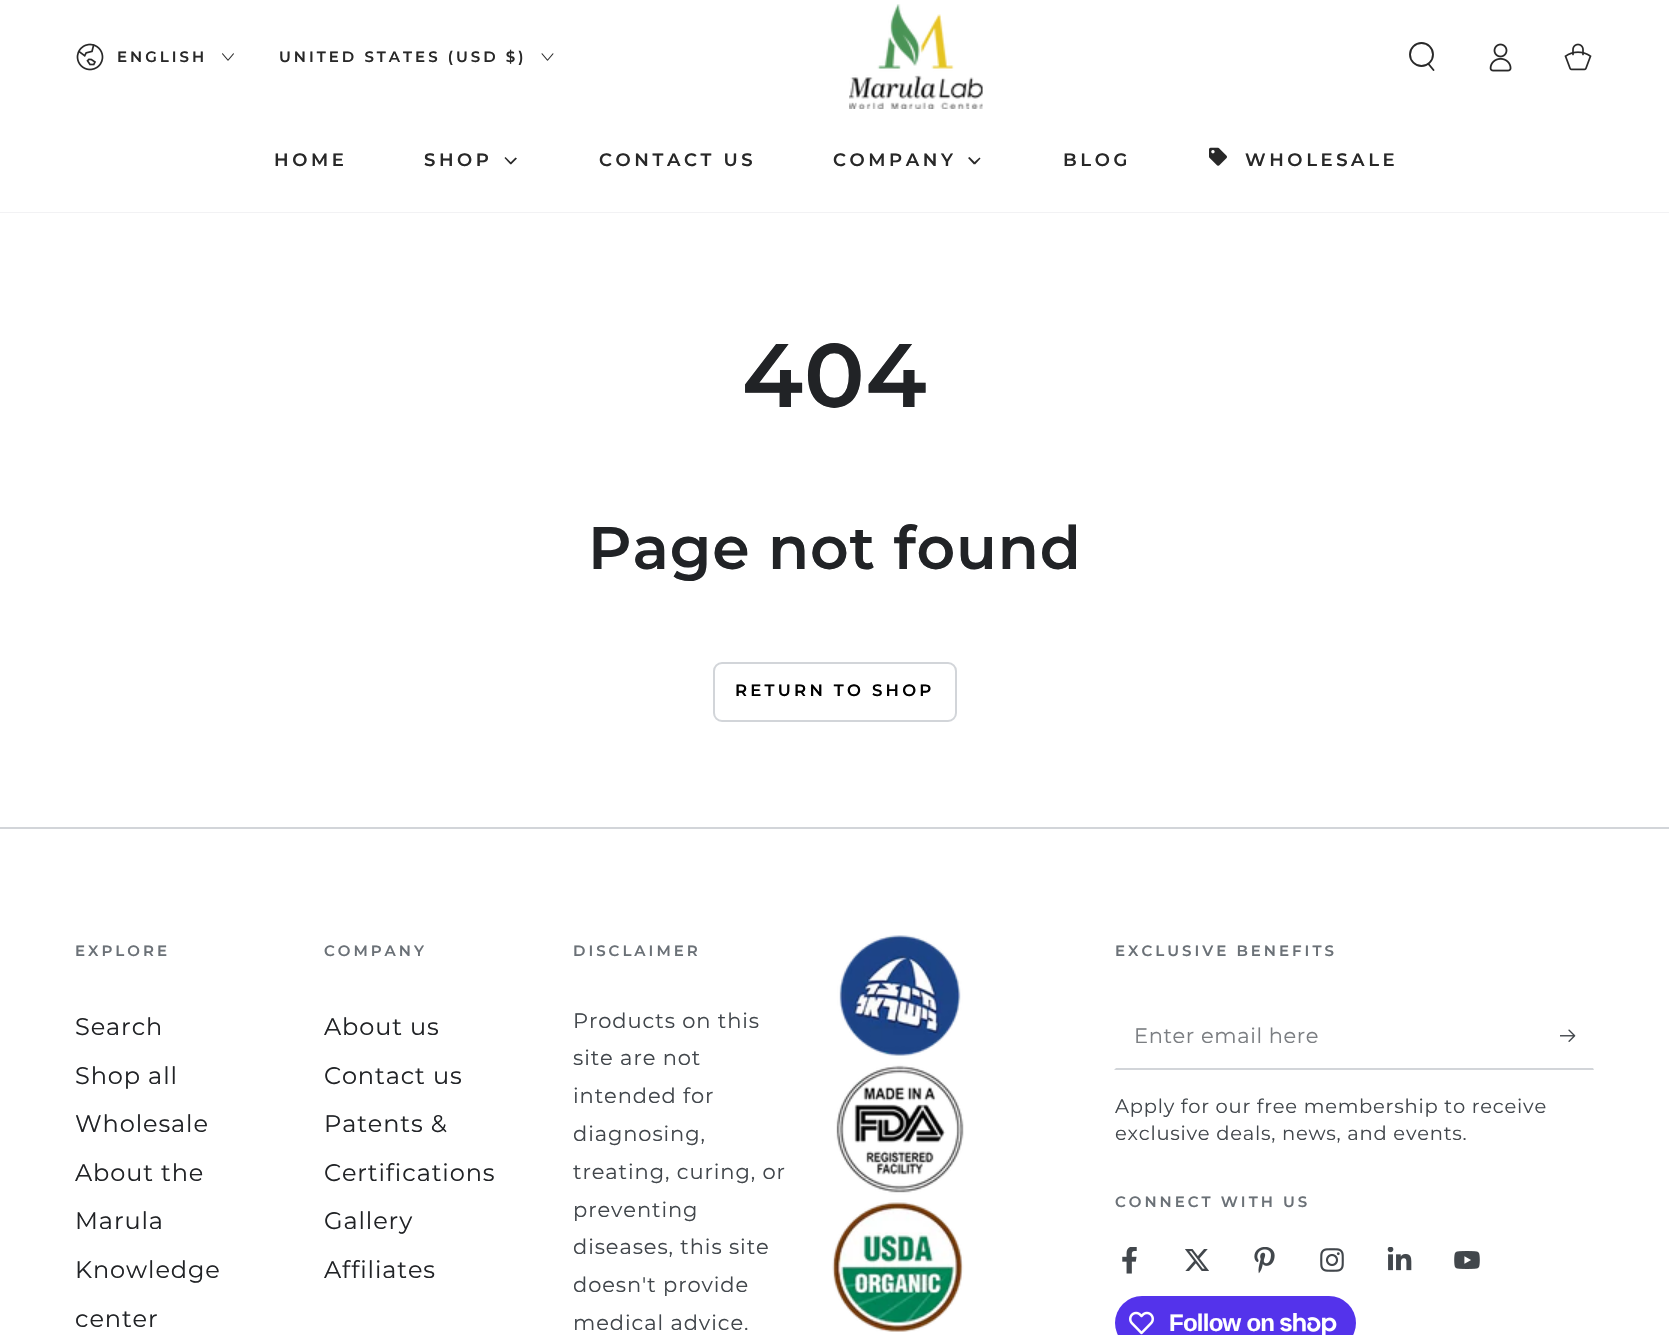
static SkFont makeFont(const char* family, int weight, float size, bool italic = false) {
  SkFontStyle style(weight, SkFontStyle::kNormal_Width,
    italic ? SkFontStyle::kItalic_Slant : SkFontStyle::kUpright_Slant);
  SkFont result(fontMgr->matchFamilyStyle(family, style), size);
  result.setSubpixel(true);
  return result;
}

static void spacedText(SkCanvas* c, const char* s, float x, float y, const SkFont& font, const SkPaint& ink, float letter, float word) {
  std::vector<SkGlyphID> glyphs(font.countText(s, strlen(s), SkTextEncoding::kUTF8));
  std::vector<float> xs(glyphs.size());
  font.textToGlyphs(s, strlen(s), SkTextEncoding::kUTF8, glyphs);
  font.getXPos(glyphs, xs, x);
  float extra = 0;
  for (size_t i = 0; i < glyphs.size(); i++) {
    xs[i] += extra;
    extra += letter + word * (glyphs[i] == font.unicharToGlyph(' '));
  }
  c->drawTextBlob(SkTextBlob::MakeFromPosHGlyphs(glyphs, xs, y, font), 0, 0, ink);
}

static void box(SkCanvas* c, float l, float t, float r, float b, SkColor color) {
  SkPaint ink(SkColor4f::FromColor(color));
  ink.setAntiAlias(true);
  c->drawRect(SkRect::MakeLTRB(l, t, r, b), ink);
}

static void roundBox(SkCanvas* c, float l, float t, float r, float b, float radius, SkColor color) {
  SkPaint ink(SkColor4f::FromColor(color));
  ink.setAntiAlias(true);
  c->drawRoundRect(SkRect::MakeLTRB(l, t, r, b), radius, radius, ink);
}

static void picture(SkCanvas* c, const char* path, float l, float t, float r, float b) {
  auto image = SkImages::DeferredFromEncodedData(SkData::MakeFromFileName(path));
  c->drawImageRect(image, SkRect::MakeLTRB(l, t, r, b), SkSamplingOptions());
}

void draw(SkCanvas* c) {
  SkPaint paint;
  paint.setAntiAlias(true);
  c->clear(0xffffffff);
  paint.setColor(0xfff2f2f4);
  c->drawPath(SkPathBuilder().moveTo(0, 212).lineTo(0, 213).lineTo(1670, 213).lineTo(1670, -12).lineTo(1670, 212).close().detach(), paint);
  picture(c, "img_01.png", 76, 43, 104, 71);
  SkFont face1 = makeFont("Montserrat", 600, 15);
  paint.setColor(0xff282828);
  spacedText(c, "ENGLISH", 117, 62, face1, paint, 3, 0);
  picture(c, "img_02.png", 222, 53, 234, 61);
  spacedText(c, "UNITED STATES (USD $)", 279, 62, face1, paint, 3, 0);
  picture(c, "img_03.png", 541, 53, 554, 61);
  picture(c, "img_04.png", 849, 4, 983, 109);
  paint.setStyle(SkPaint::kStroke_Style);
  paint.setStrokeWidth(1.9f);
  c->drawCircle(1421.5f, 54.5f, 11.5f, paint);
  paint.setStrokeCap(SkPaint::kRound_Cap);
  c->drawPath(SkPathBuilder().moveTo(1428.5f, 64).lineTo(1433.5f, 70).detach(), paint);
  picture(c, "img_05.png", 1489, 43, 1512, 72);
  picture(c, "img_06.png", 1564, 43, 1592, 71);
  SkFont face2 = makeFont("Montserrat", 600, 18);
  paint.setStyle(SkPaint::kFill_Style);
  spacedText(c, "HOME", 274, 166, face2, paint, 3.6f, 0);
  spacedText(c, "SHOP", 424, 166, face2, paint, 3.6f, 0);
  c->drawPath(SkPathBuilder().moveTo(515.5f, 157.5f).lineTo(517, 158.5f).lineTo(511, 164.5f).lineTo(510, 163).close().detach(), paint);
  c->drawPath(SkPathBuilder().moveTo(505.5f, 157).lineTo(511.5f, 163).lineTo(510.5f, 164.5f).lineTo(504.5f, 158).close().detach(), paint);
  spacedText(c, "CONTACT US", 599, 166, face2, paint, 3.6f, 0);
  spacedText(c, "COMPANY", 833, 166, face2, paint, 3.6f, 0);
  c->drawPath(SkPathBuilder().moveTo(979.5f, 157.5f).lineTo(980.5f, 158.5f).lineTo(975, 164.5f).lineTo(973.5f, 163).close().detach(), paint);
  c->drawPath(SkPathBuilder().moveTo(969.5f, 157).lineTo(975.5f, 163).lineTo(974, 164.5f).lineTo(968, 158).close().detach(), paint);
  spacedText(c, "BLOG", 1063, 166, face2, paint, 3.6f, 0);
  picture(c, "img_07.png", 1209, 147, 1227, 166);
  spacedText(c, "WHOLESALE", 1245, 166, face2, paint, 3.6f, 0);
  SkFont face3 = makeFont("Montserrat", 600, 90);
  paint.setColor(0xff212326);
  spacedText(c, "404", 742, 407, face3, paint, 0.9f, 0);
  SkFont face4 = makeFont("Montserrat", 600, 60);
  spacedText(c, "Page not found", 588, 569, face4, paint, 0.9f, 0);
  paint.setStyle(SkPaint::kStroke_Style);
  paint.setStrokeWidth(2);
  paint.setStrokeCap(SkPaint::kButt_Cap);
  paint.setColor(0xffd2d5d9);
  c->drawRoundRect(SkRect::MakeLTRB(714, 663, 956, 721), 8, 8, paint);
  SkFont face5 = makeFont("Montserrat", 600, 16.5f);
  paint.setStyle(SkPaint::kFill_Style);
  paint.setColor(0xff000000);
  spacedText(c, "RETURN TO SHOP", 735, 696, face5, paint, 3.25f, 0);
  box(c, 0, 827, 1669, 829, 0xffd2d5d9);
  paint.setColor(0xff6b7177);
  spacedText(c, "EXPLORE", 75, 956, face1, paint, 3, 0);
  SkFont face6 = makeFont("Montserrat", 400, 24);
  paint.setColor(0xff212326);
  spacedText(c, "Search", 75, 1035, face6, paint, 0.9f, 0);
  spacedText(c, "Shop all", 75, 1084, face6, paint, 0.9f, 0);
  spacedText(c, "Wholesale", 75, 1132, face6, paint, 0.9f, 0);
  spacedText(c, "About the", 75, 1181, face6, paint, 0.9f, 0);
  spacedText(c, "Marula", 75, 1229, face6, paint, 0.9f, 0);
  spacedText(c, "Knowledge", 75, 1278, face6, paint, 0.9f, 0);
  spacedText(c, "center", 75, 1327, face6, paint, 0.9f, 0);
  paint.setColor(0xff6b7177);
  spacedText(c, "COMPANY", 324, 956, face1, paint, 3, 0);
  paint.setColor(0xff212326);
  spacedText(c, "About us", 324, 1035, face6, paint, 0.9f, 0);
  spacedText(c, "Contact us", 324, 1084, face6, paint, 0.9f, 0);
  spacedText(c, "Patents &", 324, 1132, face6, paint, 0.9f, 0);
  spacedText(c, "Certifications", 324, 1181, face6, paint, 0.9f, 0);
  spacedText(c, "Gallery", 324, 1229, face6, paint, 0.9f, 0);
  spacedText(c, "Affiliates", 324, 1278, face6, paint, 0.9f, 0);
  paint.setColor(0xff6b7177);
  spacedText(c, "DISCLAIMER", 573, 956, face1, paint, 3, 0);
  SkFont face7 = makeFont("Montserrat", 400, 21);
  paint.setColor(0xff42474c);
  spacedText(c, "Products on this", 573, 1028, face7, paint, 0.9f, 0);
  spacedText(c, "site are not", 573, 1065, face7, paint, 0.9f, 0);
  spacedText(c, "intended for", 573, 1103, face7, paint, 0.9f, 0);
  spacedText(c, "diagnosing,", 573, 1141, face7, paint, 0.9f, 0);
  spacedText(c, "treating, curing, or", 573, 1179, face7, paint, 0.9f, 0);
  spacedText(c, "preventing", 573, 1217, face7, paint, 0.9f, 0);
  spacedText(c, "diseases, this site", 573, 1254, face7, paint, 0.9f, 0);
  spacedText(c, "doesn't provide", 573, 1292, face7, paint, 0.9f, 0);
  spacedText(c, "medical advice.", 573, 1330, face7, paint, 0.9f, 0);
  picture(c, "img_08.png", 832, 935, 964, 1332);
  paint.setColor(0xff6b7177);
  spacedText(c, "EXCLUSIVE BENEFITS", 1115, 956, face1, paint, 3, 0);
  paint.setColor(0xffd2d5d9);
  c->drawPath(SkPathBuilder().moveTo(1594, 1070).lineTo(1114, 1070).lineTo(1116, 1068).lineTo(1593, 1068).close().detach(), paint);
  paint.setColor(0xff7b7e82);
  spacedText(c, "Enter email here", 1134, 1043, face7, paint, 0.6f, 0);
  picture(c, "img_09.png", 1560, 1029, 1576, 1042);
  SkFont face8 = makeFont("Montserrat", 400, 19.5f);
  paint.setColor(0xff42474c);
  spacedText(c, "Apply for our free membership to receive", 1115, 1113, face8, paint, 0.75f, 0);
  spacedText(c, "exclusive deals, news, and events.", 1115, 1140, face8, paint, 0.75f, 0);
  paint.setColor(0xff6b7177);
  spacedText(c, "CONNECT WITH US", 1115, 1207, face1, paint, 3, 0);
  picture(c, "img_10.png", 1122, 1247, 1137, 1274);
  picture(c, "img_11.png", 1185, 1249, 1209, 1271);
  picture(c, "img_12.png", 1254, 1247, 1275, 1274);
  picture(c, "img_13.png", 1320, 1248, 1344, 1272);
  picture(c, "img_14.png", 1387, 1247, 1412, 1271);
  picture(c, "img_15.png", 1454, 1251, 1480, 1269);
  roundBox(c, 1115, 1296, 1356, 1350, 27, 0xff5433eb);
  picture(c, "img_16.png", 1129, 1311, 1154, 1335);
  SkFont face9 = makeFont("Liberation Sans", 700, 24);
  paint.setColor(0xffffffff);
  spacedText(c, "Follow on", 1169, 1331, face9, paint, -0.75f, 0);
  picture(c, "img_17.png", 1280, 1313, 1337, 1335);
}
